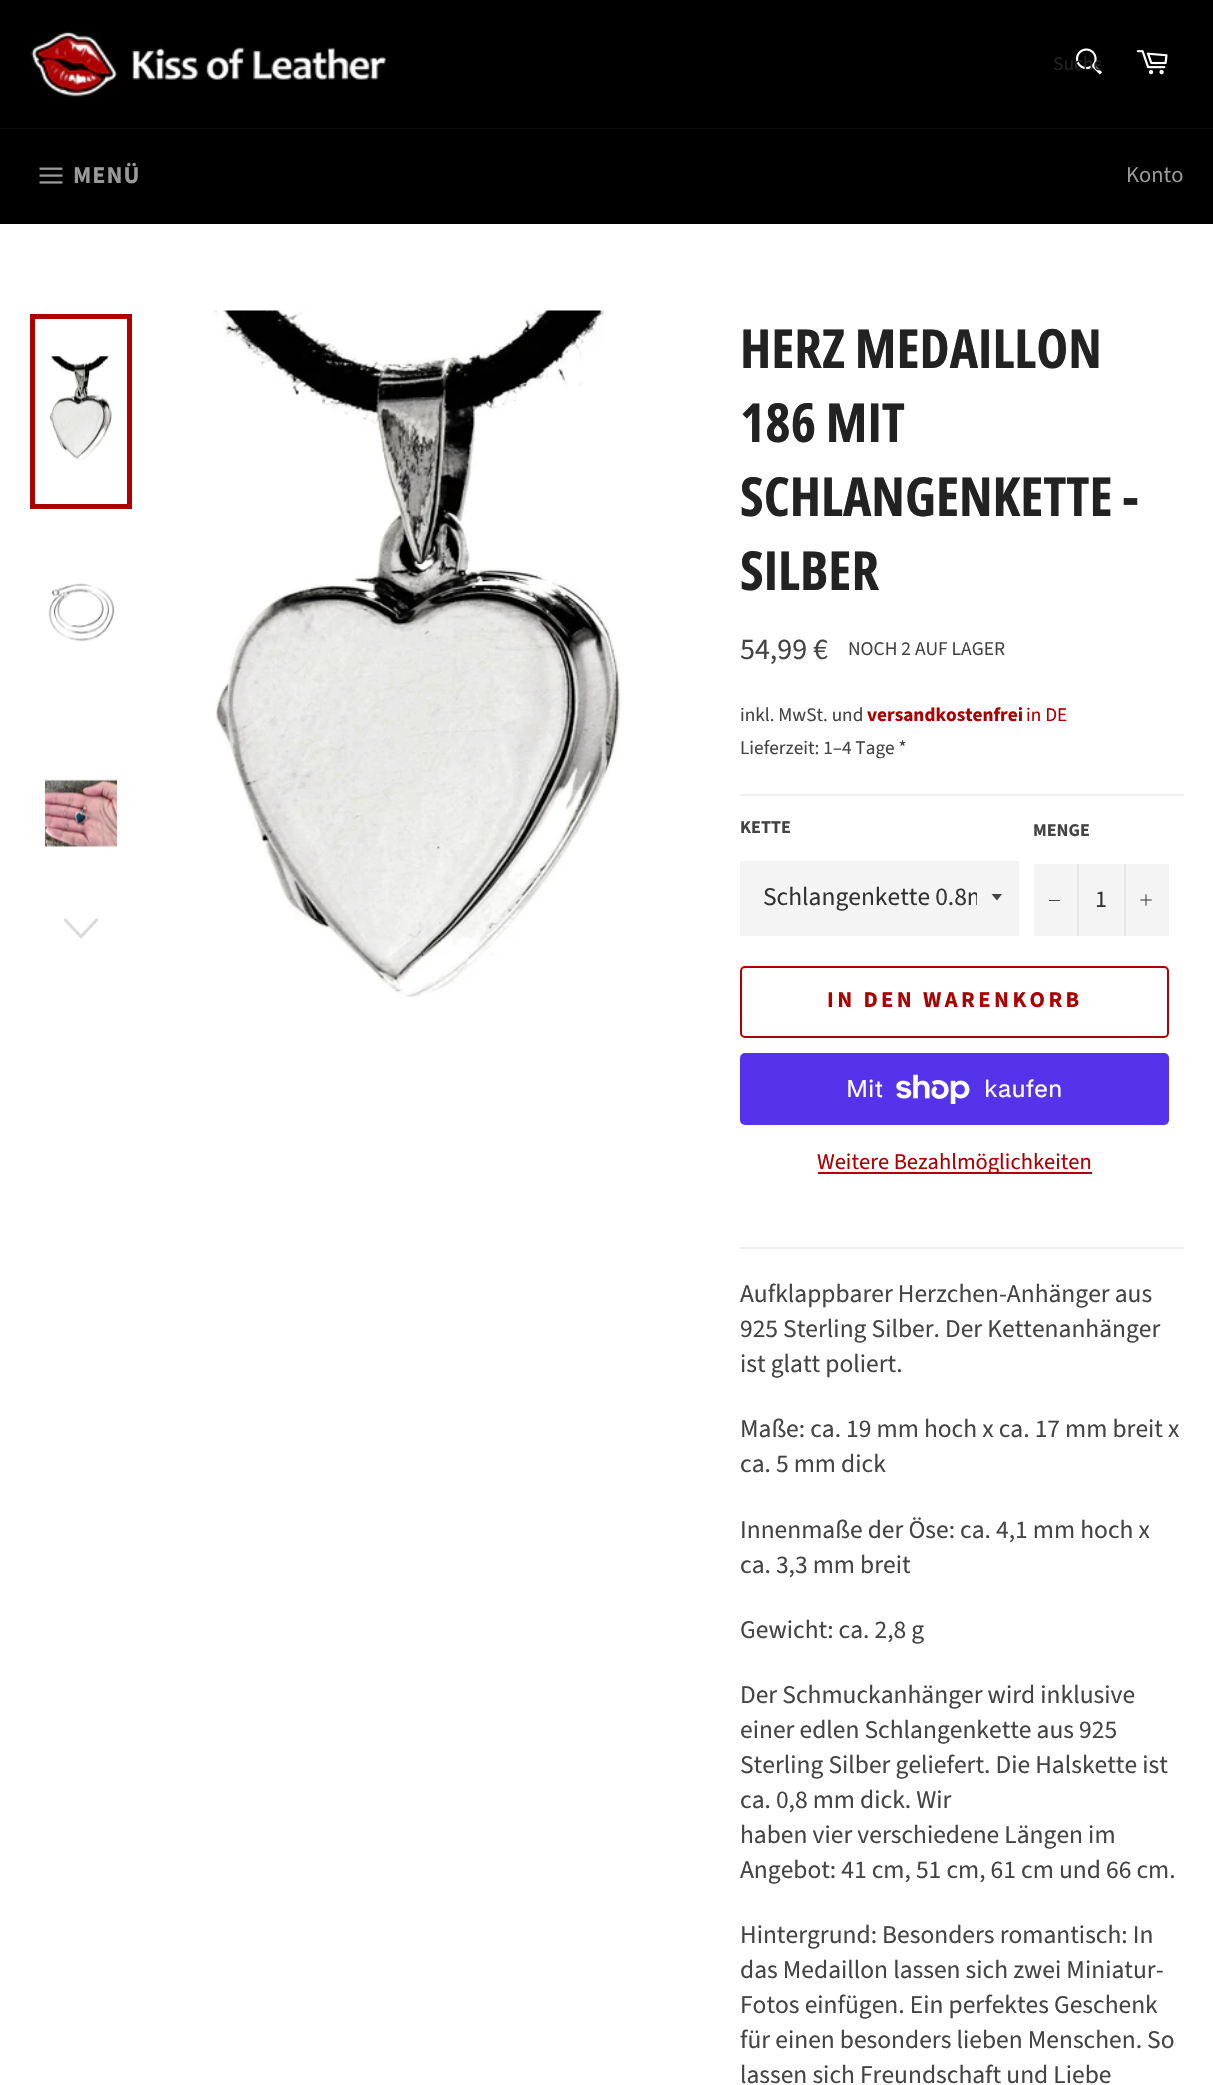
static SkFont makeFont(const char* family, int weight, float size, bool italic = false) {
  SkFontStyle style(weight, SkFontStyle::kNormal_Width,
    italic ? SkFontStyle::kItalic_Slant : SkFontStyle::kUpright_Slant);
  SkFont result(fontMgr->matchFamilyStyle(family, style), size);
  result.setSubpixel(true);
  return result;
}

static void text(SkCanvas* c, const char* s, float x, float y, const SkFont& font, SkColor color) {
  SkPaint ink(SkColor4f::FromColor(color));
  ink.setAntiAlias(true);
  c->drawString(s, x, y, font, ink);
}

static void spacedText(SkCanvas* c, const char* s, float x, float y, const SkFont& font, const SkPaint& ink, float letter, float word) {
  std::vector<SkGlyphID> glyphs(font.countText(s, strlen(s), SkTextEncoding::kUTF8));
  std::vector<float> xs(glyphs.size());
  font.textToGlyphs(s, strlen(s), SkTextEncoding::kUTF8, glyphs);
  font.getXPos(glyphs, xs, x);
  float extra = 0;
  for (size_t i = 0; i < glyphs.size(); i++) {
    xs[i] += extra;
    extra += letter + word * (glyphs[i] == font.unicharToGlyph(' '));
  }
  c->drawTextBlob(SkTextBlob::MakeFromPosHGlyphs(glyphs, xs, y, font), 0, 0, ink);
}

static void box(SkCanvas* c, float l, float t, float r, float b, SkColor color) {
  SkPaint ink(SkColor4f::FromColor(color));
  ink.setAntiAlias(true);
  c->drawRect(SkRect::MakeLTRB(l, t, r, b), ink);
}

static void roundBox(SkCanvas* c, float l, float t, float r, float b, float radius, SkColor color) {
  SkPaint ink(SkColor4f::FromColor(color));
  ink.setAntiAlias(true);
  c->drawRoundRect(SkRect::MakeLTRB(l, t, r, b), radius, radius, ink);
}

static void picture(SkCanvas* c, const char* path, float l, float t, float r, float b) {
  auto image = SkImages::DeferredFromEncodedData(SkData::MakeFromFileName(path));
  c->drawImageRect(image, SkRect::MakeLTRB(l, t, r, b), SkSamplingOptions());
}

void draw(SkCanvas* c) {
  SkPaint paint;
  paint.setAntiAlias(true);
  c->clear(0xff000000);
  picture(c, "img_01.png", 30, 31, 386, 97);
  picture(c, "img_02.png", 1075, 48, 1102, 75);
  c->save();
  c->clipRect(SkRect::MakeLTRB(1053, 51, 1101, 78));
  SkFont face1 = makeFont("Source Sans Pro", 400, 19.5f);
  text(c, "Suche", 1053, 70, face1, 0xff222222);
  c->restore();
  picture(c, "img_03.png", 1136, 50, 1168, 75);
  box(c, 0, 128, 1213, 129, 0xff0d0d0d);
  picture(c, "img_04.png", 39, 167, 63, 184);
  SkFont face2 = makeFont("Source Sans Pro", 700, 24);
  paint.setColor(0xff999999);
  spacedText(c, "MENÜ", 73, 183, face2, paint, 1, 0);
  SkFont face3 = makeFont("Source Sans Pro", 400, 22.5f);
  text(c, "Konto", 1126, 182, face3, 0xff999999);
  box(c, 0, 224, 1213, 2085, 0xffffffff);
  picture(c, "img_05.png", 50, 356, 113, 461);
  paint.setStyle(SkPaint::kStroke_Style);
  paint.setStrokeWidth(5);
  paint.setColor(0xffad0000);
  c->drawRect(SkRect::MakeLTRB(32.5f, 316.5f, 129.5f, 506.5f), paint);
  picture(c, "img_06.png", 48, 583, 115, 642);
  picture(c, "img_07.png", 45, 779, 117, 847);
  paint.setStyle(SkPaint::kFill_Style);
  paint.setColor(0xffdadada);
  c->drawPath(SkPathBuilder().moveTo(96.5f, 918).lineTo(98.5f, 920).lineTo(81, 939).lineTo(63.5f, 920).lineTo(65.5f, 918).lineTo(81, 934.5f).close().detach(), paint);
  picture(c, "img_08.png", 212, 310, 622, 998);
  SkFont face4 = makeFont("Open Sans Condensed", 700, 54);
  text(c, "HERZ MEDAILLON", 740, 368, face4, 0xff222222);
  text(c, "186 MIT", 740, 442, face4, 0xff222222);
  text(c, "SCHLANGENKETTE -", 740, 516, face4, 0xff222222);
  text(c, "SILBER", 740, 590, face4, 0xff222222);
  SkFont face5 = makeFont("Source Sans Pro", 400, 30);
  text(c, "54,99 €", 740, 659, face5, 0xff444444);
  text(c, "NOCH 2 AUF LAGER", 848, 655, face1, 0xff444444);
  SkFont face6 = makeFont("Source Sans Pro", 400, 19.25f);
  text(c, "inkl. MwSt. und", 740, 721, face6, 0xff444444);
  SkFont face7 = makeFont("Source Sans Pro", 700, 19.25f);
  text(c, "versandkostenfrei", 867, 721, face7, 0xffad0000);
  text(c, "in DE", 1026, 721, face6, 0xffad0000);
  text(c, "Lieferzeit: 1–4 Tage *", 740, 754, face6, 0xff444444);
  box(c, 740, 794, 1184, 796, 0xfff0f0f0);
  SkFont face8 = makeFont("Source Sans Pro", 700, 18);
  text(c, "KETTE", 740, 833, face8, 0xff444444);
  box(c, 740, 861, 1019, 936, 0xfff4f4f4);
  paint.setColor(0xff444444);
  c->drawPath(SkPathBuilder().moveTo(991.5f, 894).lineTo(997, 900.5f).lineTo(1002, 894).close().detach(), paint);
  c->save();
  c->clipRect(SkRect::MakeLTRB(762, 881, 977, 917));
  SkFont face9 = makeFont("Source Sans Pro", 400, 25.5f);
  text(c, "Schlangenkette 0.8m", 763, 905, face9, 0xff333333);
  c->restore();
  text(c, "MENGE", 1033, 836, face8, 0xff444444);
  box(c, 1034, 864, 1169, 936, 0xfff4f4f4);
  box(c, 1077, 864, 1079, 936, 0xffe7e7e7);
  box(c, 1049, 900, 1060, 901, 0xff444444);
  SkFont face10 = makeFont("Source Sans Pro", 400, 24);
  text(c, "1", 1095, 907, face10, 0xff333333);
  box(c, 1124, 864, 1126, 936, 0xffe7e7e7);
  picture(c, "img_09.png", 1140, 894, 1152, 906);
  paint.setStyle(SkPaint::kStroke_Style);
  paint.setStrokeWidth(2);
  paint.setColor(0xffad0000);
  c->drawRoundRect(SkRect::MakeLTRB(741, 967, 1168, 1037), 4, 4, paint);
  SkFont face11 = makeFont("Source Sans Pro", 700, 22.5f);
  paint.setStyle(SkPaint::kFill_Style);
  spacedText(c, "IN DEN WARENKORB", 827, 1007, face11, paint, 3.4f, 0);
  roundBox(c, 740, 1053, 1169, 1125, 5, 0xff5433eb);
  SkFont face12 = makeFont("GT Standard", 400, 24);
  text(c, "Mit", 846, 1097, face12, 0xffffffff);
  picture(c, "img_10.png", 896, 1074, 970, 1104);
  text(c, "kaufen", 984, 1097, face12, 0xffffffff);
  box(c, 818, 1172, 1092, 1174, 0xffad0000);
  text(c, "Weitere Bezahlmöglichkeiten", 817, 1169, face3, 0xffad0000);
  box(c, 740, 1247, 1184, 1249, 0xfff0f0f0);
  text(c, "Aufklappbarer Herzchen-Anhänger aus", 740, 1302, face9, 0xff444444);
  text(c, "925 Sterling Silber. Der Kettenanhänger", 740, 1337, face9, 0xff444444);
  text(c, "ist glatt poliert.", 740, 1372, face9, 0xff444444);
  text(c, "Maße: ca. 19 mm hoch x ca. 17 mm breit x", 740, 1437, face9, 0xff444444);
  text(c, "ca. 5 mm dick", 740, 1472, face9, 0xff444444);
  text(c, "Innenmaße der Öse: ca. 4,1 mm hoch x", 740, 1538, face9, 0xff444444);
  text(c, "ca. 3,3 mm breit", 740, 1573, face9, 0xff444444);
  text(c, "Gewicht: ca. 2,8 g", 740, 1638, face9, 0xff444444);
  text(c, "Der Schmuckanhänger wird inklusive", 740, 1703, face9, 0xff444444);
  text(c, "einer edlen Schlangenkette aus 925", 740, 1738, face9, 0xff444444);
  text(c, "Sterling Silber geliefert. Die Halskette ist", 740, 1773, face9, 0xff444444);
  text(c, "ca. 0,8 mm dick. Wir", 740, 1808, face9, 0xff444444);
  text(c, "haben vier verschiedene Längen im", 740, 1843, face9, 0xff444444);
  text(c, "Angebot: 41 cm, 51 cm, 61 cm und 66 cm.", 740, 1878, face9, 0xff444444);
  text(c, "Hintergrund: Besonders romantisch: In", 740, 1943, face9, 0xff444444);
  text(c, "das Medaillon lassen sich zwei Miniatur-", 740, 1978, face9, 0xff444444);
  text(c, "Fotos einfügen. Ein perfektes Geschenk", 740, 2013, face9, 0xff444444);
  text(c, "für einen besonders lieben Menschen. So", 740, 2048, face9, 0xff444444);
  text(c, "lassen sich Freundschaft und Liebe", 740, 2083, face9, 0xff444444);
}
